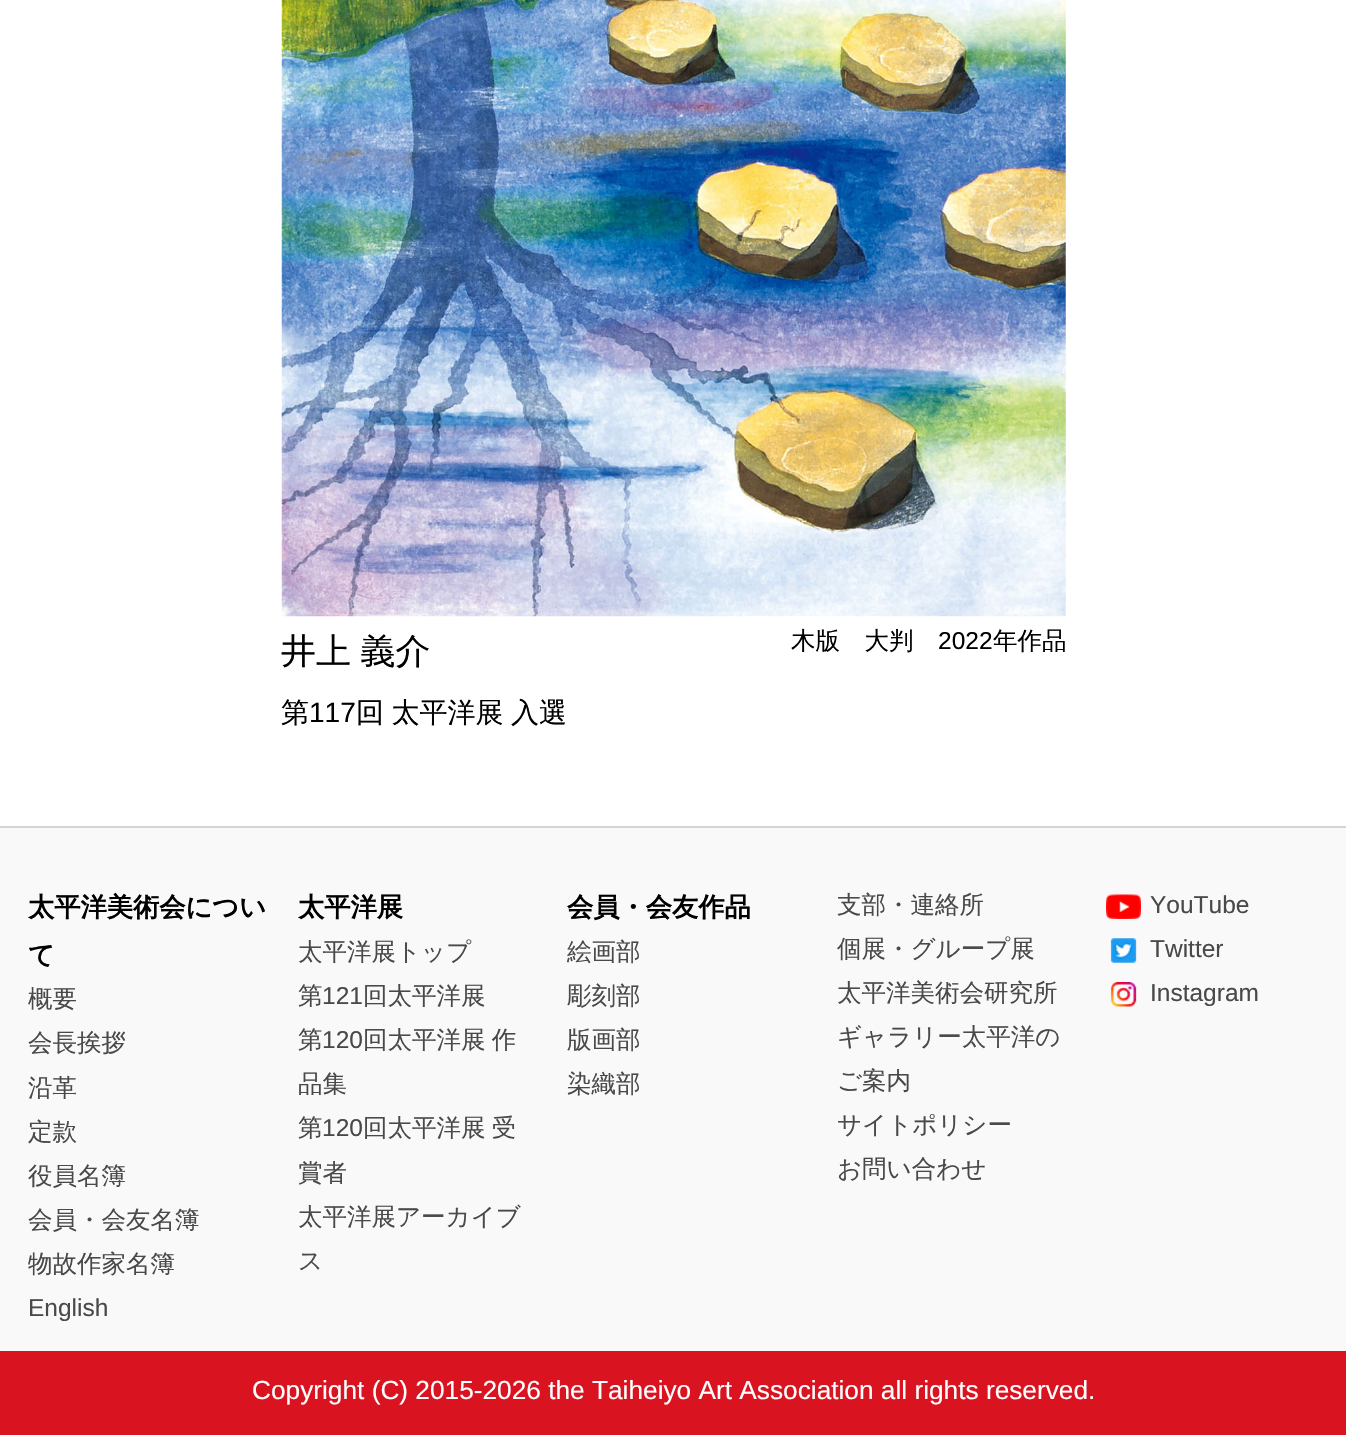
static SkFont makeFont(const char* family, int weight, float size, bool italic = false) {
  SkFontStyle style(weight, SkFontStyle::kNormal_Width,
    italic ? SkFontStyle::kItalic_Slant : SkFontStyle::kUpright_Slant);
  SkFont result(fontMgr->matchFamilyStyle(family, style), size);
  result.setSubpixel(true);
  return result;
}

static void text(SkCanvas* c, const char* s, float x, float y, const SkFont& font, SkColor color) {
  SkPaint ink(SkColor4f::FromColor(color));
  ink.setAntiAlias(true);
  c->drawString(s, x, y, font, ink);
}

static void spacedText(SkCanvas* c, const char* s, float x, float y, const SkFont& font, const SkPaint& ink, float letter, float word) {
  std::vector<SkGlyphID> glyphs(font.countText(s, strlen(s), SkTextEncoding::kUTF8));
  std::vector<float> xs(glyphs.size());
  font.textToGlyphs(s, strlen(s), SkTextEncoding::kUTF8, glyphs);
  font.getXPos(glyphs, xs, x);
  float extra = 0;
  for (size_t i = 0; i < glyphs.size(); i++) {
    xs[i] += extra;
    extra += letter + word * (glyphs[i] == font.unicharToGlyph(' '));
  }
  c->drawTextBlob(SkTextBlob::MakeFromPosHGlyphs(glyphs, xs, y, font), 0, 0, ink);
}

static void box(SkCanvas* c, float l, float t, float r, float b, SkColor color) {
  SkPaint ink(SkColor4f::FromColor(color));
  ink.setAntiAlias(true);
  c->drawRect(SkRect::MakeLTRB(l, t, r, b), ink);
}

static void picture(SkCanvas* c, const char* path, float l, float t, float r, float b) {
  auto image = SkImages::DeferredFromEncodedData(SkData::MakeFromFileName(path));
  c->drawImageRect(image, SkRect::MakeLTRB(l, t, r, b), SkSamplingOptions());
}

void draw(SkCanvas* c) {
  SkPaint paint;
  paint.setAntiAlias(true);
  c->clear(0xffffffff);
  picture(c, "img_01.png", 281, 0, 1066, 617);
  SkFont face1 = makeFont("WenQuanYi Zen Hei", 500, 35);
  paint.setColor(0xff000000);
  spacedText(c, "井上 義介", 281, 663, face1, paint, 0, -1);
  SkFont face2 = makeFont("WenQuanYi Zen Hei", 500, 24.5f);
  text(c, "木版　大判", 791, 649, face2, 0xff000000);
  SkFont face3 = makeFont("Liberation Sans", 400, 24.5f);
  text(c, "2022", 938, 649, face3, 0xff000000);
  text(c, "年作品", 993, 649, face2, 0xff000000);
  SkFont face4 = makeFont("WenQuanYi Zen Hei", 500, 28);
  text(c, "第", 281, 722, face4, 0xff000000);
  SkFont face5 = makeFont("Liberation Sans", 400, 28);
  text(c, "117", 309, 722, face5, 0xff000000);
  spacedText(c, "回 太平洋展", 356, 722, face4, paint, 0, -1);
  text(c, "入選", 511, 722, face4, 0xff000000);
  box(c, 0, 828, 1346, 1351, 0xfff9f9f9);
  box(c, 0, 826, 1346, 828, 0xffd4d4d4);
  SkFont face6 = makeFont("WenQuanYi Zen Hei", 700, 26.25f);
  text(c, "太平洋美術会につい", 28, 916, face6, 0xff000000);
  text(c, "て", 28, 964, face6, 0xff000000);
  text(c, "概要", 28, 1007, face2, 0xff494949);
  text(c, "会長挨拶", 28, 1051, face2, 0xff494949);
  text(c, "沿革", 28, 1096, face2, 0xff494949);
  text(c, "定款", 28, 1140, face2, 0xff494949);
  text(c, "役員名簿", 28, 1184, face2, 0xff494949);
  text(c, "会員・会友名簿", 28, 1228, face2, 0xff494949);
  text(c, "物故作家名簿", 28, 1272, face2, 0xff494949);
  text(c, "English", 28, 1316, face3, 0xff494949);
  text(c, "太平洋展", 298, 916, face6, 0xff000000);
  text(c, "太平洋展トップ", 298, 960, face2, 0xff494949);
  text(c, "第", 298, 1004, face2, 0xff494949);
  text(c, "121", 322, 1004, face3, 0xff494949);
  text(c, "回太平洋展", 363, 1004, face2, 0xff494949);
  text(c, "第", 298, 1048, face2, 0xff494949);
  text(c, "120", 322, 1048, face3, 0xff494949);
  paint.setColor(0xff494949);
  spacedText(c, "回太平洋展 作", 363, 1048, face2, paint, 0, -1);
  text(c, "品集", 298, 1092, face2, 0xff494949);
  text(c, "第", 298, 1136, face2, 0xff494949);
  text(c, "120", 322, 1136, face3, 0xff494949);
  spacedText(c, "回太平洋展 受", 363, 1136, face2, paint, 0, -1);
  text(c, "賞者", 298, 1181, face2, 0xff494949);
  text(c, "太平洋展アーカイブ", 298, 1225, face2, 0xff494949);
  text(c, "ス", 298, 1269, face2, 0xff494949);
  text(c, "会員・会友作品", 567, 916, face6, 0xff000000);
  text(c, "絵画部", 567, 960, face2, 0xff494949);
  text(c, "彫刻部", 567, 1004, face2, 0xff494949);
  text(c, "版画部", 567, 1048, face2, 0xff494949);
  text(c, "染織部", 567, 1092, face2, 0xff494949);
  text(c, "支部・連絡所", 837, 913, face2, 0xff494949);
  text(c, "個展・グループ展", 837, 957, face2, 0xff494949);
  text(c, "太平洋美術会研究所", 837, 1001, face2, 0xff494949);
  text(c, "ギャラリー太平洋の", 837, 1045, face2, 0xff494949);
  text(c, "ご案内", 837, 1089, face2, 0xff494949);
  text(c, "サイトポリシー", 837, 1133, face2, 0xff494949);
  text(c, "お問い合わせ", 837, 1177, face2, 0xff494949);
  picture(c, "img_02.png", 1106, 894, 1141, 919);
  text(c, "YouTube", 1150, 913, face3, 0xff494949);
  picture(c, "img_03.png", 1110, 938, 1137, 963);
  text(c, "Twitter", 1150, 957, face3, 0xff494949);
  picture(c, "img_04.png", 1110, 982, 1137, 1007);
  text(c, "Instagram", 1150, 1001, face3, 0xff494949);
  box(c, 0, 1351, 1346, 1435, 0xffd91320);
  SkFont face7 = makeFont("Liberation Sans", 400, 26.25f);
  text(c, "Copyright (C) 2015-2026 the Taiheiyo Art Association all rights reserved.", 252, 1399, face7, 0xffffffff);
}
